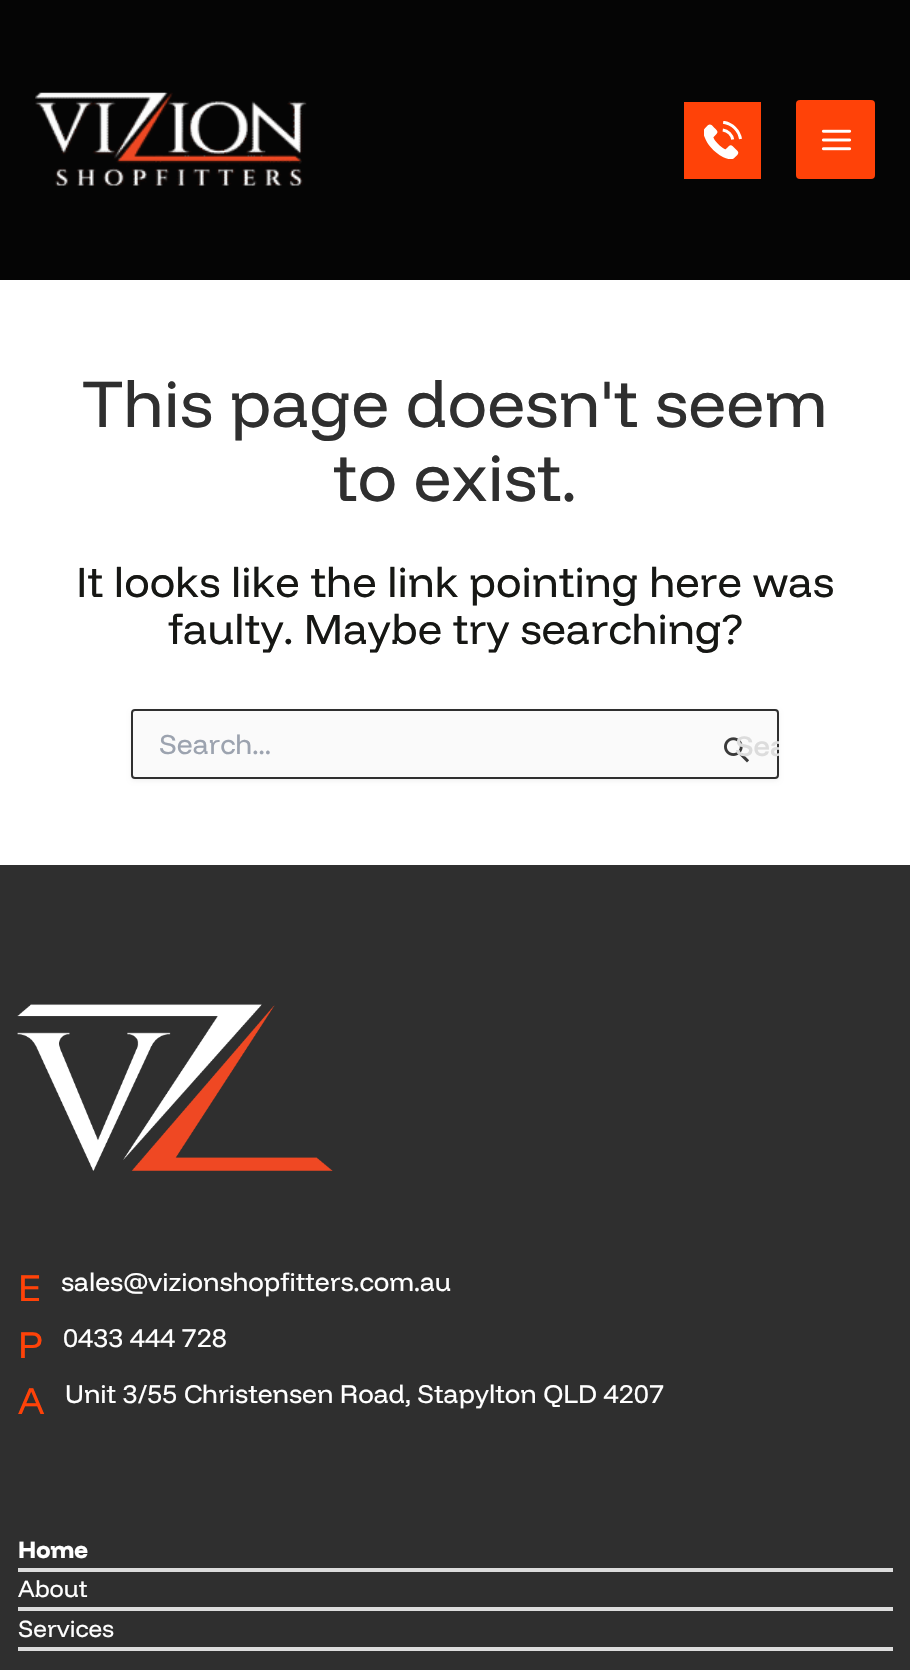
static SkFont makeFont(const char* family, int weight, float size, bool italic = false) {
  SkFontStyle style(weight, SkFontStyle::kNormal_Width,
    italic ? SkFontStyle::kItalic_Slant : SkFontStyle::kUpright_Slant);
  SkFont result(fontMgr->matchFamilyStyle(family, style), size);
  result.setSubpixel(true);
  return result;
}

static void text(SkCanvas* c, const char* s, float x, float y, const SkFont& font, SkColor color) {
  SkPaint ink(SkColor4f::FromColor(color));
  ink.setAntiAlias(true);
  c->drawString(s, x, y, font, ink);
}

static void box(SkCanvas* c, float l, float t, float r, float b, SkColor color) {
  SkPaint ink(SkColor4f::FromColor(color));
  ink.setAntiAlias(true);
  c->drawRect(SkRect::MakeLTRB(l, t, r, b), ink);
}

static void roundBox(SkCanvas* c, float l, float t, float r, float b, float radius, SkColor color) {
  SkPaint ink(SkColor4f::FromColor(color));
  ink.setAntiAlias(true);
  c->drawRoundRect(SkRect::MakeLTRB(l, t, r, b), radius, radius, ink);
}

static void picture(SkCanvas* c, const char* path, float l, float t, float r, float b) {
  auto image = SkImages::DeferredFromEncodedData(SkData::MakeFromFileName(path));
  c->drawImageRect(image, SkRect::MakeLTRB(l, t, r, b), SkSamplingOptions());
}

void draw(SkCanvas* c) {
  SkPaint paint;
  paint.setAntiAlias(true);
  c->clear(0xffffffff);
  box(c, 0, 0, 910, 280, 0xff050505);
  picture(c, "img_01.png", 35, 92, 307, 186);
  box(c, 684, 102, 761, 179, 0xffff4208);
  picture(c, "img_02.png", 704, 121, 742, 159);
  roundBox(c, 796, 100, 875, 179, 4, 0xffff4208);
  picture(c, "img_03.png", 821, 129, 852, 151);
  SkFont face1 = makeFont("Funnel Display", 400, 67);
  text(c, "This page doesn't seem", 82, 427, face1, 0xff2f2f2f);
  text(c, "to exist.", 333, 501, face1, 0xff2f2f2f);
  SkFont face2 = makeFont("Funnel Display", 400, 43.1f);
  text(c, "It looks like the link pointing here was", 76, 597, face2, 0xff161714);
  text(c, "faulty. Maybe try searching?", 168, 644, face2, 0xff161714);
  paint.setColor(0x0d000000);
  paint.setMaskFilter(SkMaskFilter::MakeBlur(kNormal_SkBlurStyle, 2));
  c->drawRoundRect(SkRect::MakeLTRB(131, 711, 779, 781), 4, 4, paint);
  paint.setMaskFilter(nullptr);
  paint.setColor(0xfffafafa);
  c->drawRoundRect(SkRect::MakeLTRB(132, 710, 778, 778), 3, 3, paint);
  paint.setStyle(SkPaint::kStroke_Style);
  paint.setStrokeWidth(2);
  paint.setColor(0xff2f2f2f);
  c->drawRoundRect(SkRect::MakeLTRB(132, 710, 778, 778), 3, 3, paint);
  SkFont face3 = makeFont("Funnel Display", 400, 28);
  text(c, "Search...", 159, 754, face3, 0xff9ca3af);
  picture(c, "img_04.png", 724, 737, 749, 763);
  c->save();
  c->clipPath(SkPathBuilder().moveTo(704, 709).lineTo(775, 709).cubicTo(777, 709, 779, 711, 779, 713).lineTo(779, 780).cubicTo(779, 782, 777, 784, 775, 784).lineTo(704, 784).cubicTo(702, 784, 700, 782, 700, 780).lineTo(700, 713).cubicTo(700, 711, 702, 709, 704, 709).close().detach(), true);
  SkFont face4 = makeFont("Funnel Display", 500, 29);
  text(c, "Sea", 735, 756, face4, 0xffdcdcdc);
  c->restore();
  box(c, 0, 865, 910, 1670, 0xff2f2f2f);
  picture(c, "img_05.png", 17, 1004, 333, 1171);
  SkFont face5 = makeFont("Funnel Display", 400, 38);
  text(c, "E", 18, 1301, face5, 0xffff4208);
  SkFont face6 = makeFont("Funnel Display", 400, 26.25f);
  text(c, "sales@vizionshopfitters.com.au", 61, 1291, face6, 0xffffffff);
  text(c, "P", 18, 1358, face5, 0xffff4208);
  text(c, "0433 444 728", 63, 1347, face6, 0xffffffff);
  text(c, "A", 18, 1414, face5, 0xffff4208);
  text(c, "Unit 3/55 Christensen Road, Stapylton QLD 4207", 65, 1403, face6, 0xffffffff);
  SkFont face7 = makeFont("Funnel Display", 800, 24);
  text(c, "Home", 18, 1558, face7, 0xffffffff);
  box(c, 18, 1568, 893, 1572, 0xffdcdcdc);
  SkFont face8 = makeFont("Funnel Display", 400, 24);
  text(c, "About", 18, 1597, face8, 0xffffffff);
  box(c, 18, 1607, 893, 1611, 0xffdcdcdc);
  text(c, "Services", 18, 1637, face8, 0xffffffff);
  box(c, 18, 1647, 893, 1651, 0xffdcdcdc);
}
